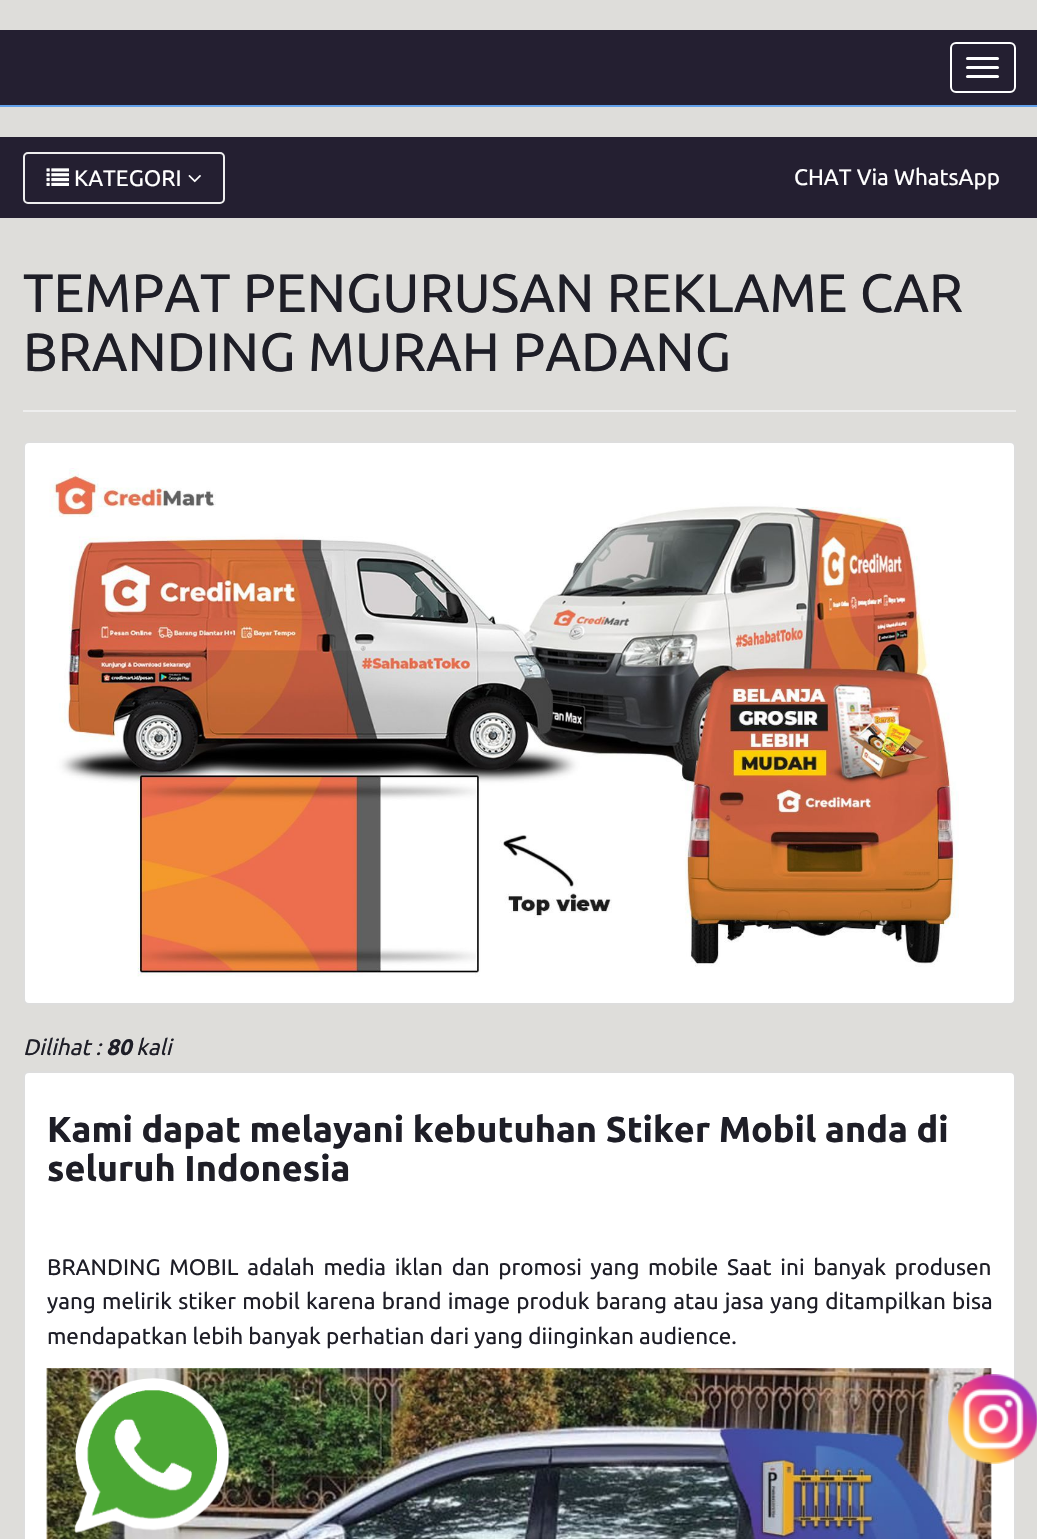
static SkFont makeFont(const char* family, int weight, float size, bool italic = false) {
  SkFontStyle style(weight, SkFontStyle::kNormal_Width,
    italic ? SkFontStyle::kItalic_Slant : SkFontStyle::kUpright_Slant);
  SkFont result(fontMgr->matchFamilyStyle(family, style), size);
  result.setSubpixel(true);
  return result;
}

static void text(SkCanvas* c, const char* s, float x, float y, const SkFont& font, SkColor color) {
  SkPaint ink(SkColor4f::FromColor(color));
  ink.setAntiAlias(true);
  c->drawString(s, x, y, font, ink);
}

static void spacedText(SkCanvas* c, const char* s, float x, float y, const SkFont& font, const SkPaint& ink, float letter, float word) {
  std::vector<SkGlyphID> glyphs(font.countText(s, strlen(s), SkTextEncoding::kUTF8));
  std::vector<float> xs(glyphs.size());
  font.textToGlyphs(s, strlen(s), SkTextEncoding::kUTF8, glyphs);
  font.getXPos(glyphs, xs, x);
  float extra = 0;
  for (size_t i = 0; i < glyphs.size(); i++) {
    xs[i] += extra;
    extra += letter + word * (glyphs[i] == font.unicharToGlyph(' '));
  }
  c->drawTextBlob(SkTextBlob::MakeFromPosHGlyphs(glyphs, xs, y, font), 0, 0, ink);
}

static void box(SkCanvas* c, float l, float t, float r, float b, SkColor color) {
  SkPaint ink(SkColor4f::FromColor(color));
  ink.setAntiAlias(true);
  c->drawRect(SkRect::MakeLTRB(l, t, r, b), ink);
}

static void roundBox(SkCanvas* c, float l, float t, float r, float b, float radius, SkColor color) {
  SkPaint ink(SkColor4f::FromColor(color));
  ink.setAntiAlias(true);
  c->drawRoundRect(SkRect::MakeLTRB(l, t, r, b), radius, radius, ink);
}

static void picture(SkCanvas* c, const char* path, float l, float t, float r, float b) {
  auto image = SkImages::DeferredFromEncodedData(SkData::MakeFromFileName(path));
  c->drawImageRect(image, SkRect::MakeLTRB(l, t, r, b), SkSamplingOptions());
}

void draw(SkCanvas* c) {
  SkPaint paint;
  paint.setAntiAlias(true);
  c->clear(0xffdeddda);
  box(c, 0, 30, 1037, 105, 0xff241f31);
  box(c, 0, 105, 1037, 107, 0xff62a0ea);
  paint.setStyle(SkPaint::kStroke_Style);
  paint.setStrokeWidth(2);
  paint.setColor(0xffffffff);
  c->drawRoundRect(SkRect::MakeLTRB(951, 43, 1015, 92), 5, 5, paint);
  roundBox(c, 966, 57, 999, 60, 1.5f, 0xffffffff);
  roundBox(c, 966, 66, 999, 69, 1.5f, 0xffffffff);
  roundBox(c, 966, 75, 999, 78, 1.5f, 0xffffffff);
  box(c, 0, 137, 1037, 218, 0xff241f31);
  paint.setColor(0xffeeeeee);
  c->drawRoundRect(SkRect::MakeLTRB(24, 153, 224, 203), 4, 4, paint);
  picture(c, "img_01.png", 46, 168, 69, 186);
  SkFont face1 = makeFont("Ubuntu", 400, 22.5f);
  text(c, "KATEGORI", 74, 186, face1, 0xffffffff);
  picture(c, "img_02.png", 188, 175, 201, 183);
  text(c, "CHAT Via WhatsApp", 794, 185, face1, 0xffffffff);
  box(c, 23, 410, 1016, 412, 0xffeeeeee);
  SkFont face2 = makeFont("Ubuntu", 400, 54);
  text(c, "TEMPAT PENGURUSAN REKLAME CAR", 23, 312, face2, 0xff1e1e27);
  text(c, "BRANDING MURAH PADANG", 23, 371, face2, 0xff1e1e27);
  paint.setStyle(SkPaint::kFill_Style);
  paint.setColor(0xffffffff);
  c->drawRoundRect(SkRect::MakeLTRB(24, 442, 1015, 1004), 5, 5, paint);
  paint.setStyle(SkPaint::kStroke_Style);
  paint.setColor(0xffdddddd);
  c->drawRoundRect(SkRect::MakeLTRB(24, 442, 1015, 1004), 5, 5, paint);
  picture(c, "img_03.png", 49, 468, 959, 977);
  SkFont face3 = makeFont("Ubuntu", 400, 22.5f, true);
  text(c, "Dilihat :", 23, 1055, face3, 0xff1e1e27);
  SkFont face4 = makeFont("Ubuntu", 700, 22.5f, true);
  text(c, "80", 106, 1055, face4, 0xff1e1e27);
  text(c, "kali", 136, 1055, face3, 0xff1e1e27);
  paint.setStyle(SkPaint::kFill_Style);
  paint.setColor(0xffffffff);
  c->drawRoundRect(SkRect::MakeLTRB(24, 1072, 1015, 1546), 5, 5, paint);
  paint.setStyle(SkPaint::kStroke_Style);
  paint.setColor(0xffdddddd);
  c->drawRoundRect(SkRect::MakeLTRB(24, 1072, 1015, 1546), 5, 5, paint);
  SkFont face5 = makeFont("Ubuntu", 700, 36);
  text(c, "Kami dapat melayani kebutuhan Stiker Mobil anda di", 47, 1142, face5, 0xff1e1e27);
  text(c, "seluruh Indonesia", 47, 1181, face5, 0xff1e1e27);
  paint.setStyle(SkPaint::kFill_Style);
  paint.setColor(0xff1e1e27);
  spacedText(c, "BRANDING MOBIL adalah media iklan dan promosi yang mobile Saat ini banyak produsen", 47, 1275, face1, paint, 0, 3.5f);
  spacedText(c, "yang melirik stiker mobil karena brand image produk barang atau jasa yang ditampilkan bisa", 47, 1309, face1, paint, 0, 1);
  text(c, "mendapatkan lebih banyak perhatian dari yang diinginkan audience.", 47, 1344, face1, 0xff1e1e27);
  picture(c, "img_04.png", 46, 1368, 992, 1539);
  picture(c, "img_05.png", 74, 1378, 230, 1533);
  picture(c, "img_06.png", 948, 1374, 1037, 1464);
}
